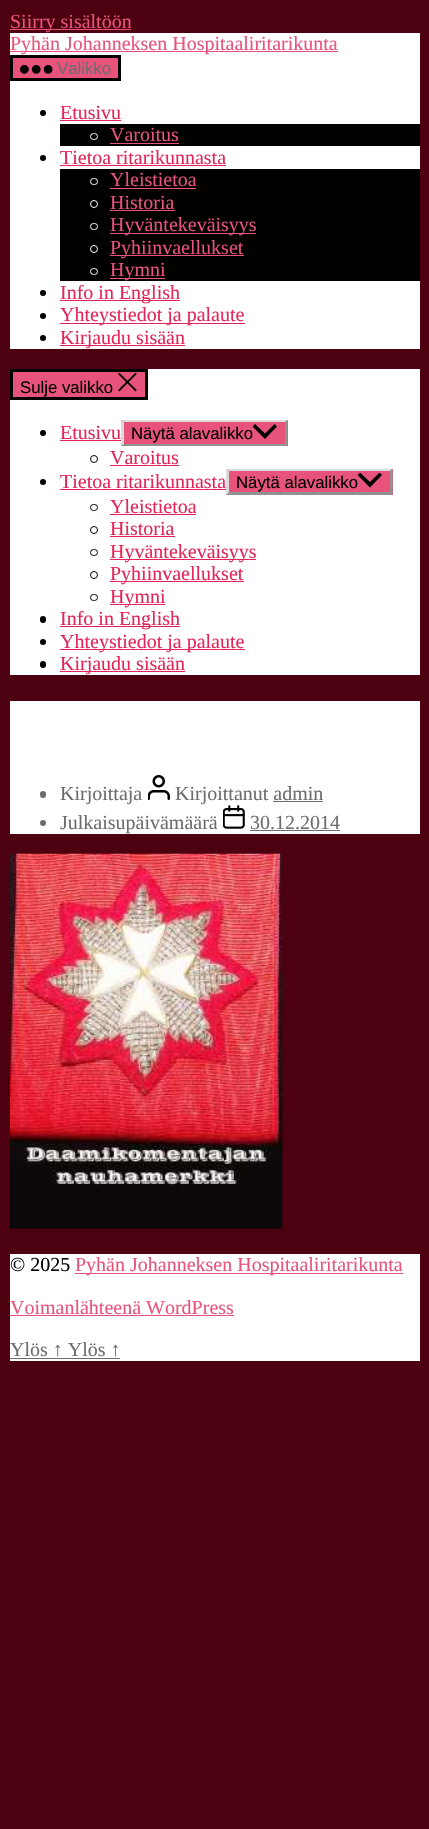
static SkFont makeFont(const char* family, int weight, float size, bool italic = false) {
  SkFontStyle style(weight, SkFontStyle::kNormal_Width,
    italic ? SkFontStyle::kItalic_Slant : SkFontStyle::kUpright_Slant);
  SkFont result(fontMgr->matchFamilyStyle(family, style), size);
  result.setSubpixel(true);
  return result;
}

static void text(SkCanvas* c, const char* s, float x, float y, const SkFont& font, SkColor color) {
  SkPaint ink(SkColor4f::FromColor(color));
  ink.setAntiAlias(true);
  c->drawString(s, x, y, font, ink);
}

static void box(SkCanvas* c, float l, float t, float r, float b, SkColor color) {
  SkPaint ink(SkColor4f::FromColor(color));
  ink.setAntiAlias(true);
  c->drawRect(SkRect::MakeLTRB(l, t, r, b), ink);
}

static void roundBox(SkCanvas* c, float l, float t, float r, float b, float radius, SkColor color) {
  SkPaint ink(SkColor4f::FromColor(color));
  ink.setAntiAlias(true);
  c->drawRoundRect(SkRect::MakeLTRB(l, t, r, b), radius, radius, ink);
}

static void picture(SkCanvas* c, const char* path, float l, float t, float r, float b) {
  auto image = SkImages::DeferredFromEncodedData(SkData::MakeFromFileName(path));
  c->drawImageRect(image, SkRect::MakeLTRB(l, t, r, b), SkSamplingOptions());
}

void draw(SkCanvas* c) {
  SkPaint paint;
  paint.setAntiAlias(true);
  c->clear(0xff4c0010);
  box(c, 10, 29, 131, 30, 0xffe8537b);
  SkFont face1 = makeFont("Liberation Serif", 400, 20);
  text(c, "Siirry sisältöön", 10, 28, face1, 0xffe8537b);
  box(c, 10, 33, 420, 349, 0xffffffff);
  box(c, 10, 51, 338, 52, 0xffe8537b);
  text(c, "Pyhän Johanneksen Hospitaaliritarikunta", 10, 50, face1, 0xffe8537b);
  paint.setColor(0xffe8537b);
  c->drawRect(SkRect::MakeLTRB(11.5f, 56.5f, 119.5f, 79.5f), paint);
  paint.setStyle(SkPaint::kStroke_Style);
  paint.setStrokeWidth(3);
  paint.setColor(0xff000000);
  c->drawRect(SkRect::MakeLTRB(11.5f, 56.5f, 119.5f, 79.5f), paint);
  picture(c, "img_01.png", 20, 65, 53, 74);
  SkFont face2 = makeFont("Liberation Sans", 400, 16.75f);
  text(c, "Valikko", 57, 74, face2, 0xff6d6d6d);
  paint.setStyle(SkPaint::kFill_Style);
  c->drawCircle(43, 113, 3, paint);
  text(c, "Etusivu", 60, 119, face1, 0xffe22658);
  box(c, 60, 120, 121, 121, 0xffe22658);
  box(c, 60, 124, 420, 146, 0xff000000);
  paint.setStyle(SkPaint::kStroke_Style);
  paint.setStrokeWidth(1);
  paint.setColor(0xffffffff);
  c->drawRoundRect(SkRect::MakeLTRB(90.5f, 133.5f, 97.5f, 139.5f), 3, 3, paint);
  text(c, "Varoitus", 110, 141, face1, 0xffe8537b);
  box(c, 110, 143, 179, 144, 0xffe8537b);
  paint.setStyle(SkPaint::kFill_Style);
  paint.setColor(0xff000000);
  c->drawCircle(43, 158, 3, paint);
  text(c, "Tietoa ritarikunnasta", 60, 164, face1, 0xffe22658);
  box(c, 60, 165, 226, 166, 0xffe22658);
  box(c, 60, 169, 420, 281, 0xff000000);
  paint.setStyle(SkPaint::kStroke_Style);
  paint.setColor(0xffffffff);
  c->drawRoundRect(SkRect::MakeLTRB(90.5f, 178.5f, 97.5f, 184.5f), 3, 3, paint);
  text(c, "Yleistietoa", 110, 186, face1, 0xffe8537b);
  box(c, 110, 188, 196, 189, 0xffe8537b);
  c->drawCircle(94, 204, 3.5f, paint);
  text(c, "Historia", 110, 209, face1, 0xffe8537b);
  box(c, 110, 210, 175, 211, 0xffe8537b);
  c->drawRoundRect(SkRect::MakeLTRB(90.5f, 223.5f, 97.5f, 229.5f), 3, 3, paint);
  box(c, 110, 233, 256, 234, 0xffe8537b);
  text(c, "Hyväntekeväisyys", 110, 231, face1, 0xffe8537b);
  c->drawCircle(94, 249, 3.5f, paint);
  box(c, 110, 255, 244, 256, 0xffe8537b);
  text(c, "Pyhiinvaellukset", 110, 254, face1, 0xffe8537b);
  c->drawRoundRect(SkRect::MakeLTRB(90.5f, 268.5f, 97.5f, 274.5f), 3, 3, paint);
  box(c, 110, 278, 165, 279, 0xffe8537b);
  text(c, "Hymni", 110, 276, face1, 0xffe8537b);
  paint.setStyle(SkPaint::kFill_Style);
  paint.setColor(0xff000000);
  c->drawCircle(43, 293, 3, paint);
  box(c, 60, 300, 180, 301, 0xffe22658);
  text(c, "Info in English", 60, 299, face1, 0xffe22658);
  c->drawCircle(43, 316, 3, paint);
  box(c, 60, 323, 245, 324, 0xffe22658);
  text(c, "Yhteystiedot ja palaute", 60, 321, face1, 0xffe22658);
  c->drawCircle(43, 338, 3, paint);
  box(c, 60, 345, 185, 346, 0xffe22658);
  text(c, "Kirjaudu sisään", 60, 344, face1, 0xffe22658);
  box(c, 10, 369, 420, 675, 0xffffffff);
  paint.setColor(0xffe8537b);
  c->drawRect(SkRect::MakeLTRB(11.5f, 370.5f, 146.5f, 398.5f), paint);
  paint.setStyle(SkPaint::kStroke_Style);
  paint.setStrokeWidth(3);
  paint.setColor(0xff000000);
  c->drawRect(SkRect::MakeLTRB(11.5f, 370.5f, 146.5f, 398.5f), paint);
  text(c, "Sulje valikko", 20, 393, face2, 0xff000000);
  picture(c, "img_02.png", 118, 373, 137, 392);
  paint.setStyle(SkPaint::kFill_Style);
  c->drawCircle(43, 433, 3, paint);
  text(c, "Etusivu", 60, 439, face1, 0xffe22658);
  box(c, 60, 440, 121, 441, 0xffe22658);
  box(c, 121, 420, 288, 446, 0xffe8537b);
  paint.setColor(0xffdbdbdb);
  c->drawPath(SkPathBuilder().moveTo(121, 420).lineTo(288, 420).lineTo(285, 422).lineTo(124, 422).close().detach(), paint);
  paint.setColor(0xff929292);
  c->drawPath(SkPathBuilder().moveTo(287.5f, 420).lineTo(287.5f, 446).lineTo(285, 444).lineTo(285, 422.5f).close().detach(), paint);
  c->drawPath(SkPathBuilder().moveTo(288, 446).lineTo(121, 446).lineTo(124, 444).lineTo(285, 444).close().detach(), paint);
  paint.setColor(0xffdbdbdb);
  c->drawPath(SkPathBuilder().moveTo(121, 446).lineTo(121, 420).lineTo(124, 422.5f).lineTo(124, 444).close().detach(), paint);
  text(c, "Näytä alavalikko", 131, 439, face2, 0xff000000);
  paint.setColor(0xff000000);
  c->drawPath(SkPathBuilder(SkPathFillType::kEvenOdd).moveTo(265, 433.5f).lineTo(274.5f, 424).lineTo(277, 426.5f).lineTo(265, 439).lineTo(252.5f, 426.5f).lineTo(255, 424).close().detach(), paint);
  paint.setStyle(SkPaint::kStroke_Style);
  paint.setStrokeWidth(1);
  c->drawCircle(94, 459, 3.5f, paint);
  text(c, "Varoitus", 110, 464, face1, 0xffe22658);
  box(c, 110, 465, 179, 466, 0xffe22658);
  paint.setStyle(SkPaint::kFill_Style);
  c->drawCircle(43, 482, 3, paint);
  text(c, "Tietoa ritarikunnasta", 60, 488, face1, 0xffe22658);
  box(c, 60, 489, 226, 490, 0xffe22658);
  box(c, 226, 469, 393, 495, 0xffe8537b);
  paint.setColor(0xffdbdbdb);
  c->drawPath(SkPathBuilder().moveTo(226, 469).lineTo(392, 469).lineTo(390, 471).lineTo(229, 471).close().detach(), paint);
  paint.setColor(0xff929292);
  c->drawPath(SkPathBuilder().moveTo(392.5f, 469).lineTo(392.5f, 495).lineTo(390, 492.5f).lineTo(390, 471).close().detach(), paint);
  c->drawPath(SkPathBuilder().moveTo(392, 495).lineTo(226, 495).lineTo(229, 492).lineTo(390, 492).close().detach(), paint);
  paint.setColor(0xffdbdbdb);
  c->drawPath(SkPathBuilder().moveTo(226, 495).lineTo(226, 469).lineTo(229, 471).lineTo(229, 492.5f).close().detach(), paint);
  text(c, "Näytä alavalikko", 236, 488, face2, 0xff000000);
  c->save();
  c->clipRect(SkRect::MakeLTRB(358, 473, 383, 488));
  paint.setColor(0xff000000);
  c->drawPath(SkPathBuilder(SkPathFillType::kEvenOdd).moveTo(370, 482).lineTo(379.5f, 472.5f).lineTo(382, 475).lineTo(370, 487.5f).lineTo(357.5f, 475).lineTo(360, 472.5f).close().detach(), paint);
  c->restore();
  paint.setStyle(SkPaint::kStroke_Style);
  c->drawRoundRect(SkRect::MakeLTRB(90.5f, 504.5f, 97.5f, 510.5f), 3, 3, paint);
  text(c, "Yleistietoa", 110, 513, face1, 0xffe22658);
  box(c, 110, 514, 196, 515, 0xffe22658);
  c->drawCircle(94, 530, 3.5f, paint);
  text(c, "Historia", 110, 535, face1, 0xffe22658);
  box(c, 110, 536, 175, 537, 0xffe22658);
  c->drawRoundRect(SkRect::MakeLTRB(90.5f, 549.5f, 97.5f, 555.5f), 3, 3, paint);
  box(c, 110, 559, 256, 560, 0xffe22658);
  text(c, "Hyväntekeväisyys", 110, 558, face1, 0xffe22658);
  c->drawCircle(94, 575, 3.5f, paint);
  box(c, 110, 581, 244, 582, 0xffe22658);
  text(c, "Pyhiinvaellukset", 110, 580, face1, 0xffe22658);
  c->drawRoundRect(SkRect::MakeLTRB(90.5f, 594.5f, 97.5f, 600.5f), 3, 3, paint);
  box(c, 110, 604, 165, 605, 0xffe22658);
  text(c, "Hymni", 110, 603, face1, 0xffe22658);
  roundBox(c, 40, 616, 46, 623, 3, 0xff000000);
  box(c, 60, 626, 180, 627, 0xffe22658);
  text(c, "Info in English", 60, 625, face1, 0xffe22658);
  paint.setStyle(SkPaint::kFill_Style);
  c->drawCircle(43, 642, 3, paint);
  box(c, 60, 649, 245, 650, 0xffe22658);
  text(c, "Yhteystiedot ja palaute", 60, 648, face1, 0xffe22658);
  roundBox(c, 40, 661, 46, 668, 3, 0xff000000);
  box(c, 60, 671, 185, 672, 0xffe22658);
  text(c, "Kirjaudu sisään", 60, 670, face1, 0xffe22658);
  box(c, 10, 701, 420, 834, 0xffffffff);
  roundBox(c, 40, 791, 46, 798, 3, 0xff6d6d6d);
  text(c, "Kirjoittaja", 60, 800, face1, 0xff6d6d6d);
  picture(c, "img_03.png", 148, 775, 170, 800);
  text(c, "Kirjoittanut admin", 175, 800, face1, 0xff6d6d6d);
  box(c, 273, 801, 323, 802, 0xff6d6d6d);
  paint.setColor(0xff6d6d6d);
  c->drawCircle(43, 823, 3, paint);
  text(c, "Julkaisupäivämäärä", 60, 829, face1, 0xff6d6d6d);
  picture(c, "img_04.png", 223, 805, 245, 829);
  text(c, "30.12.2014", 250, 829, face1, 0xff6d6d6d);
  box(c, 250, 830, 340, 831, 0xff6d6d6d);
  picture(c, "img_05.png", 10, 853, 283, 1229);
  box(c, 10, 1254, 420, 1361, 0xffffffff);
  text(c, "© 2025", 10, 1271, face1, 0xff000000);
  box(c, 75, 1273, 403, 1274, 0xffe8537b);
  text(c, "Pyhän Johanneksen Hospitaaliritarikunta", 75, 1271, face1, 0xffe8537b);
  text(c, "Voimanlähteenä WordPress", 10, 1314, face1, 0xffe8537b);
  box(c, 10, 1315, 234, 1316, 0xffe8537b);
  text(c, "Ylös ↑ Ylös ↑", 10, 1356, face1, 0xff6d6d6d);
  box(c, 10, 1358, 120, 1359, 0xff6d6d6d);
}
